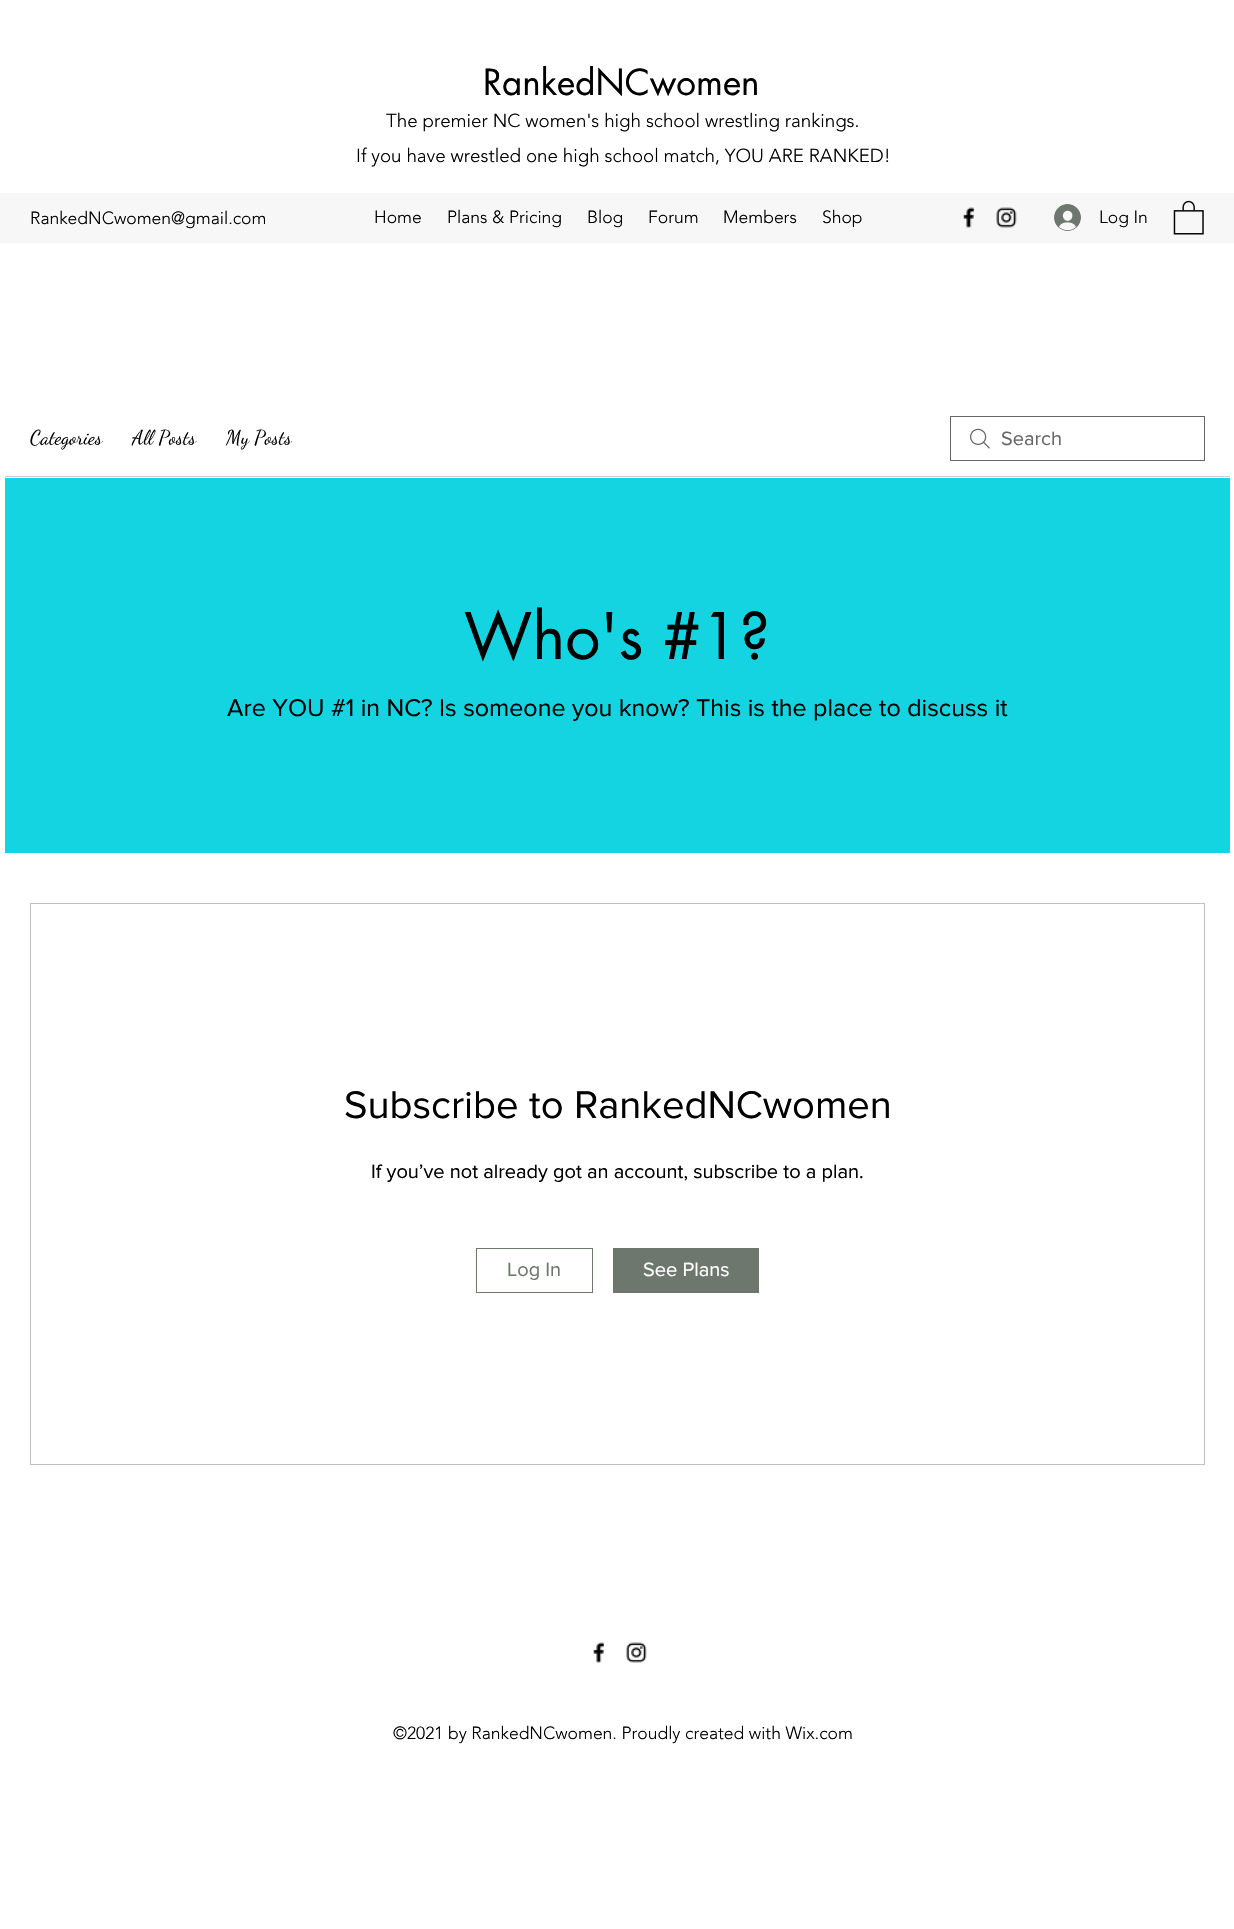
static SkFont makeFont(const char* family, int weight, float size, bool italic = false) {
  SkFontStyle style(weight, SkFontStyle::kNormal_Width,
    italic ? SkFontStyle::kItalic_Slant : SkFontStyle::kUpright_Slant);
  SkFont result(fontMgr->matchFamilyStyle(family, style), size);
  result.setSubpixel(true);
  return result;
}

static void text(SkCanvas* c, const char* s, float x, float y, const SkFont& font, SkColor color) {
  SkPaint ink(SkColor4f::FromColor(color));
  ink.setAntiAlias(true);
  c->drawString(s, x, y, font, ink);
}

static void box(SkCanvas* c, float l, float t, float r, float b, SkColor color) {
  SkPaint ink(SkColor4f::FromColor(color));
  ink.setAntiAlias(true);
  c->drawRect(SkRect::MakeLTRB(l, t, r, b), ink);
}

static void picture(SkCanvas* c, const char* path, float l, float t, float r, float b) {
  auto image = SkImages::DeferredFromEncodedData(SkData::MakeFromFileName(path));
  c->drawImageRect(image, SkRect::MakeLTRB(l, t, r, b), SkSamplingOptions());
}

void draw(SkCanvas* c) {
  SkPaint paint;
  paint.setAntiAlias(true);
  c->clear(0xffffffff);
  SkFont face1 = makeFont("futura", 400, 35);
  text(c, "RankedNCwomen", 483, 95, face1, 0xff000000);
  SkFont face2 = makeFont("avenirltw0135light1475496", 300, 18.75f);
  text(c, "The premier NC women's high school wrestling rankings.", 386, 127, face2, 0xff000000);
  text(c, "If you have wrestled one high school match, YOU ARE RANKED!", 356, 162, face2, 0xff000000);
  box(c, 0, 193, 1234, 243, 0xfff7f7f7);
  SkFont face3 = makeFont("avenirltw0135light1475496", 300, 17.5f);
  text(c, "RankedNCwomen@gmail.com", 30, 224, face3, 0xff000000);
  text(c, "Home", 374, 223, face3, 0xff000000);
  text(c, "Plans & Pricing", 447, 223, face3, 0xff000000);
  text(c, "Blog", 587, 223, face3, 0xff000000);
  text(c, "Forum", 648, 223, face3, 0xff000000);
  text(c, "Members", 723, 223, face3, 0xff000000);
  text(c, "Shop", 822, 223, face3, 0xff000000);
  picture(c, "img_01.png", 963, 207, 975, 228);
  picture(c, "img_02.png", 996, 207, 1017, 228);
  picture(c, "img_03.png", 1054, 204, 1081, 231);
  text(c, "Log In", 1099, 223, face3, 0xff000000);
  picture(c, "img_04.png", 1173, 200, 1204, 235);
  box(c, 5, 476, 1230, 477, 0xffcccccc);
  SkFont face4 = makeFont("Dancing Script", 400, 20);
  text(c, "Categories", 30, 444, face4, 0xff000000);
  text(c, "All Posts", 132, 444, face4, 0xff000000);
  text(c, "My Posts", 226, 444, face4, 0xff000000);
  picture(c, "img_05.png", 970, 428, 990, 449);
  paint.setStyle(SkPaint::kStroke_Style);
  paint.setStrokeWidth(1);
  paint.setColor(0xff666666);
  c->drawRect(SkRect::MakeLTRB(950.5f, 416.5f, 1204.5f, 460.5f), paint);
  SkFont face5 = makeFont("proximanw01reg", 400, 20);
  text(c, "Search", 1001, 445, face5, 0xff666666);
  box(c, 5, 478, 1230, 853, 0xff14d4e1);
  SkFont face6 = makeFont("futura", 400, 62.5f);
  text(c, "Who's #1?", 464, 659, face6, 0xff000000);
  SkFont face7 = makeFont("proximanw01reg", 400, 25);
  text(c, "Are YOU #1 in NC? Is someone you know? This is the place to discuss it", 227, 716, face7, 0xff000000);
  paint.setColor(0xffbfbfbf);
  c->drawRect(SkRect::MakeLTRB(30.5f, 903.5f, 1204.5f, 1464.5f), paint);
  SkFont face8 = makeFont("proximanw01reg", 400, 40);
  text(c, "Subscribe to RankedNCwomen", 344, 1118, face8, 0xff000000);
  text(c, "If you’ve not already got an account, subscribe to a plan.", 371, 1178, face5, 0xff000000);
  paint.setColor(0xff6e776e);
  c->drawRect(SkRect::MakeLTRB(476.5f, 1248.5f, 592.5f, 1292.5f), paint);
  text(c, "Log In", 507, 1276, face5, 0xff6e776e);
  box(c, 613, 1248, 759, 1293, 0xff6e776e);
  text(c, "See Plans", 643, 1276, face5, 0xffffffff);
  picture(c, "img_06.png", 593, 1642, 605, 1663);
  picture(c, "img_07.png", 626, 1642, 647, 1663);
  text(c, "©2021 by RankedNCwomen. Proudly created with Wix.com", 393, 1739, face3, 0xff000000);
}
